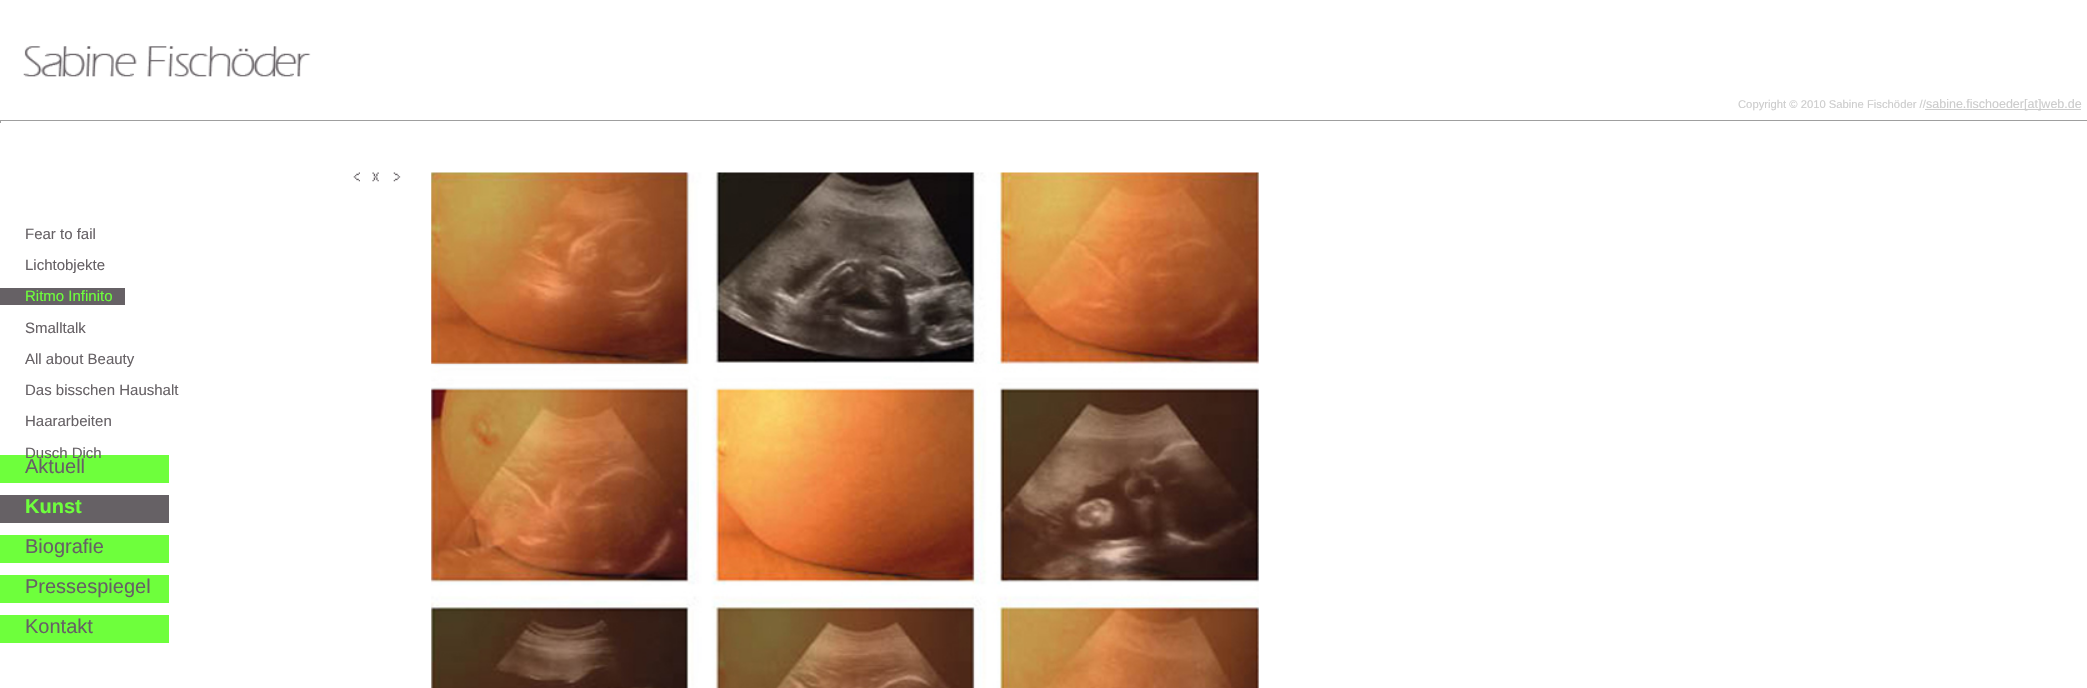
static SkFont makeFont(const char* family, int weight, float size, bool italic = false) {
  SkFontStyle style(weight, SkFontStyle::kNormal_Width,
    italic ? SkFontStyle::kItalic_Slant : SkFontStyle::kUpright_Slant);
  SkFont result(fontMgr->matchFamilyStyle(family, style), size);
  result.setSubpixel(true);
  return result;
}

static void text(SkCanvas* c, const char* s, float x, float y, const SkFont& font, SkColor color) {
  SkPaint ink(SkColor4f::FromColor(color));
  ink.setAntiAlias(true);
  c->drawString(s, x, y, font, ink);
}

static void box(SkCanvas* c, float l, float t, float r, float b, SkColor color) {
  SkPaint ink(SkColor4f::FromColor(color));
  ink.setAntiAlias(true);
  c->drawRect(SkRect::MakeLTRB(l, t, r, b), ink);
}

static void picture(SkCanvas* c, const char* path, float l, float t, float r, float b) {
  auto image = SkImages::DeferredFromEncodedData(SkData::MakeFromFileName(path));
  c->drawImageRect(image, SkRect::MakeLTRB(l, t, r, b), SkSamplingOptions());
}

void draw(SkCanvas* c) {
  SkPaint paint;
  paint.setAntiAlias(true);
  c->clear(0xffffffff);
  SkFont face1 = makeFont("Liberation Sans", 400, 11.25f);
  text(c, "Copyright © 2010 Sabine Fischöder //", 1738, 108, face1, 0xffcccccc);
  box(c, 1925, 109, 2081, 110, 0xffcccccc);
  SkFont face2 = makeFont("Liberation Sans", 400, 12.5f);
  text(c, "sabine.fischoeder[at]web.de", 1926, 108, face2, 0xffcccccc);
  box(c, 0, 120, 2087, 121, 0xff9f9f9f);
  box(c, 0, 120, 1, 123, 0xff9f9f9f);
  picture(c, "img_01.png", 23, 46, 311, 77);
  picture(c, "img_02.png", 353, 172, 360, 182);
  picture(c, "img_03.png", 372, 172, 379, 182);
  picture(c, "img_04.png", 393, 172, 401, 182);
  SkFont face3 = makeFont("Liberation Sans", 400, 15);
  text(c, "Fear to fail", 25, 239, face3, 0xff666165);
  text(c, "Lichtobjekte", 25, 270, face3, 0xff666165);
  box(c, 0, 288, 125, 305, 0xff666165);
  text(c, "Ritmo Infinito", 25, 301, face3, 0xff6eff3c);
  text(c, "Smalltalk", 25, 333, face3, 0xff666165);
  text(c, "All about Beauty", 25, 364, face3, 0xff666165);
  text(c, "Das bisschen Haushalt", 25, 395, face3, 0xff666165);
  text(c, "Haararbeiten", 25, 426, face3, 0xff666165);
  box(c, 0, 455, 169, 483, 0xff6eff3c);
  text(c, "Dusch Dich", 25, 458, face3, 0xff666165);
  SkFont face4 = makeFont("Liberation Sans", 400, 20);
  text(c, "Aktuell", 25, 473, face4, 0xff666165);
  box(c, 0, 495, 169, 523, 0xff666165);
  SkFont face5 = makeFont("Liberation Sans", 700, 20);
  text(c, "Kunst", 25, 513, face5, 0xff6eff3c);
  box(c, 0, 535, 169, 563, 0xff6eff3c);
  text(c, "Biografie", 25, 553, face4, 0xff666165);
  box(c, 0, 575, 169, 603, 0xff6eff3c);
  text(c, "Pressespiegel", 25, 593, face4, 0xff666165);
  box(c, 0, 615, 169, 643, 0xff6eff3c);
  text(c, "Kontakt", 25, 633, face4, 0xff666165);
  picture(c, "img_05.png", 431, 172, 1259, 688);
}
